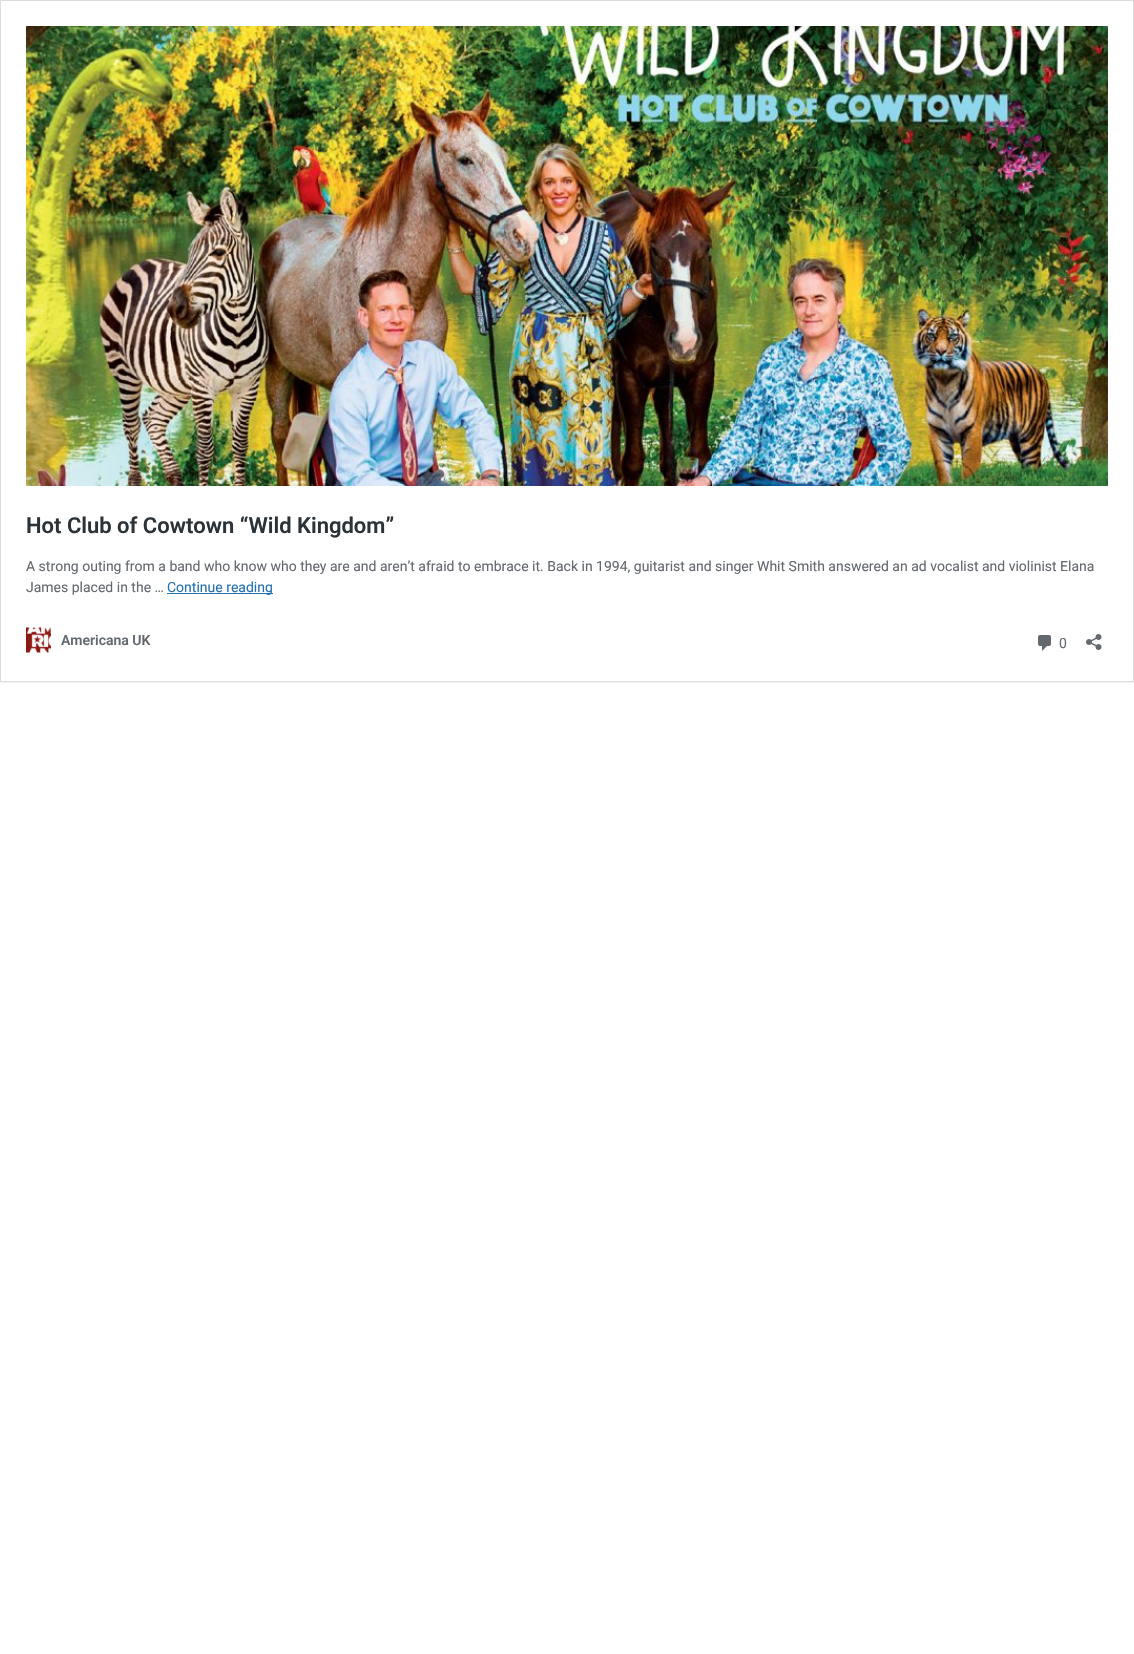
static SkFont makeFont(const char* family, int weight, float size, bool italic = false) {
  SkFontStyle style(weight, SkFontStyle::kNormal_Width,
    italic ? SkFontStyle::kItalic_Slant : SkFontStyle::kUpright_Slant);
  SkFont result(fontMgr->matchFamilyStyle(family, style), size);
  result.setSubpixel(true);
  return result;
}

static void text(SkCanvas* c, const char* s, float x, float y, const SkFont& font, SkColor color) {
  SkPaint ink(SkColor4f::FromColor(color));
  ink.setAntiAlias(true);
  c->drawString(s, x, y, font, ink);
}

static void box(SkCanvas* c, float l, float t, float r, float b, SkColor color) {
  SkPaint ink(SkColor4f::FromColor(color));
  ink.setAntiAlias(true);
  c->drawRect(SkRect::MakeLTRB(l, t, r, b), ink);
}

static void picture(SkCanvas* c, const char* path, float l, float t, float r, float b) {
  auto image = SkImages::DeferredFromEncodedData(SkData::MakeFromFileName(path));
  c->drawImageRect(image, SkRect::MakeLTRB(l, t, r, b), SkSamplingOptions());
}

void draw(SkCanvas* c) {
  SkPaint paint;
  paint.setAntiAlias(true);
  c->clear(0xffffffff);
  c->save();
  c->clipRect(SkRect::MakeLTRB(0, 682, 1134, 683));
  paint.setColor(0x0d000000);
  paint.setMaskFilter(SkMaskFilter::MakeBlur(kNormal_SkBlurStyle, 0.5f));
  c->drawRect(SkRect::MakeLTRB(0, 1, 1134, 683), paint);
  paint.setMaskFilter(nullptr);
  c->restore();
  paint.setStyle(SkPaint::kStroke_Style);
  paint.setStrokeWidth(1);
  paint.setColor(0xffdcdcde);
  c->drawRect(SkRect::MakeLTRB(0.5f, 0.5f, 1133.5f, 681.5f), paint);
  picture(c, "img_01.png", 26, 26, 1108, 486);
  SkFont face1 = makeFont("Roboto", 600, 22);
  text(c, "Hot Club of Cowtown “Wild Kingdom”", 26, 533, face1, 0xff2c3338);
  SkFont face2 = makeFont("Roboto", 400, 14);
  text(c, "A strong outing from a band who know who they are and aren’t afraid to embrace it. Back in 1994, guitarist and singer Whit Smith answered an ad vocalist and violinist Elana", 26, 571, face2, 0xff646970);
  text(c, "James placed in the …", 26, 592, face2, 0xff646970);
  box(c, 167, 593, 273, 594, 0xff2271b1);
  text(c, "Continue reading", 167, 592, face2, 0xff2271b1);
  picture(c, "img_02.png", 26, 627, 51, 653);
  SkFont face3 = makeFont("Roboto", 600, 14);
  text(c, "Americana UK", 61, 645, face3, 0xff646970);
  picture(c, "img_03.png", 1038, 635, 1051, 651);
  text(c, "0", 1059, 648, face2, 0xff646970);
  picture(c, "img_04.png", 1086, 634, 1102, 650);
}
